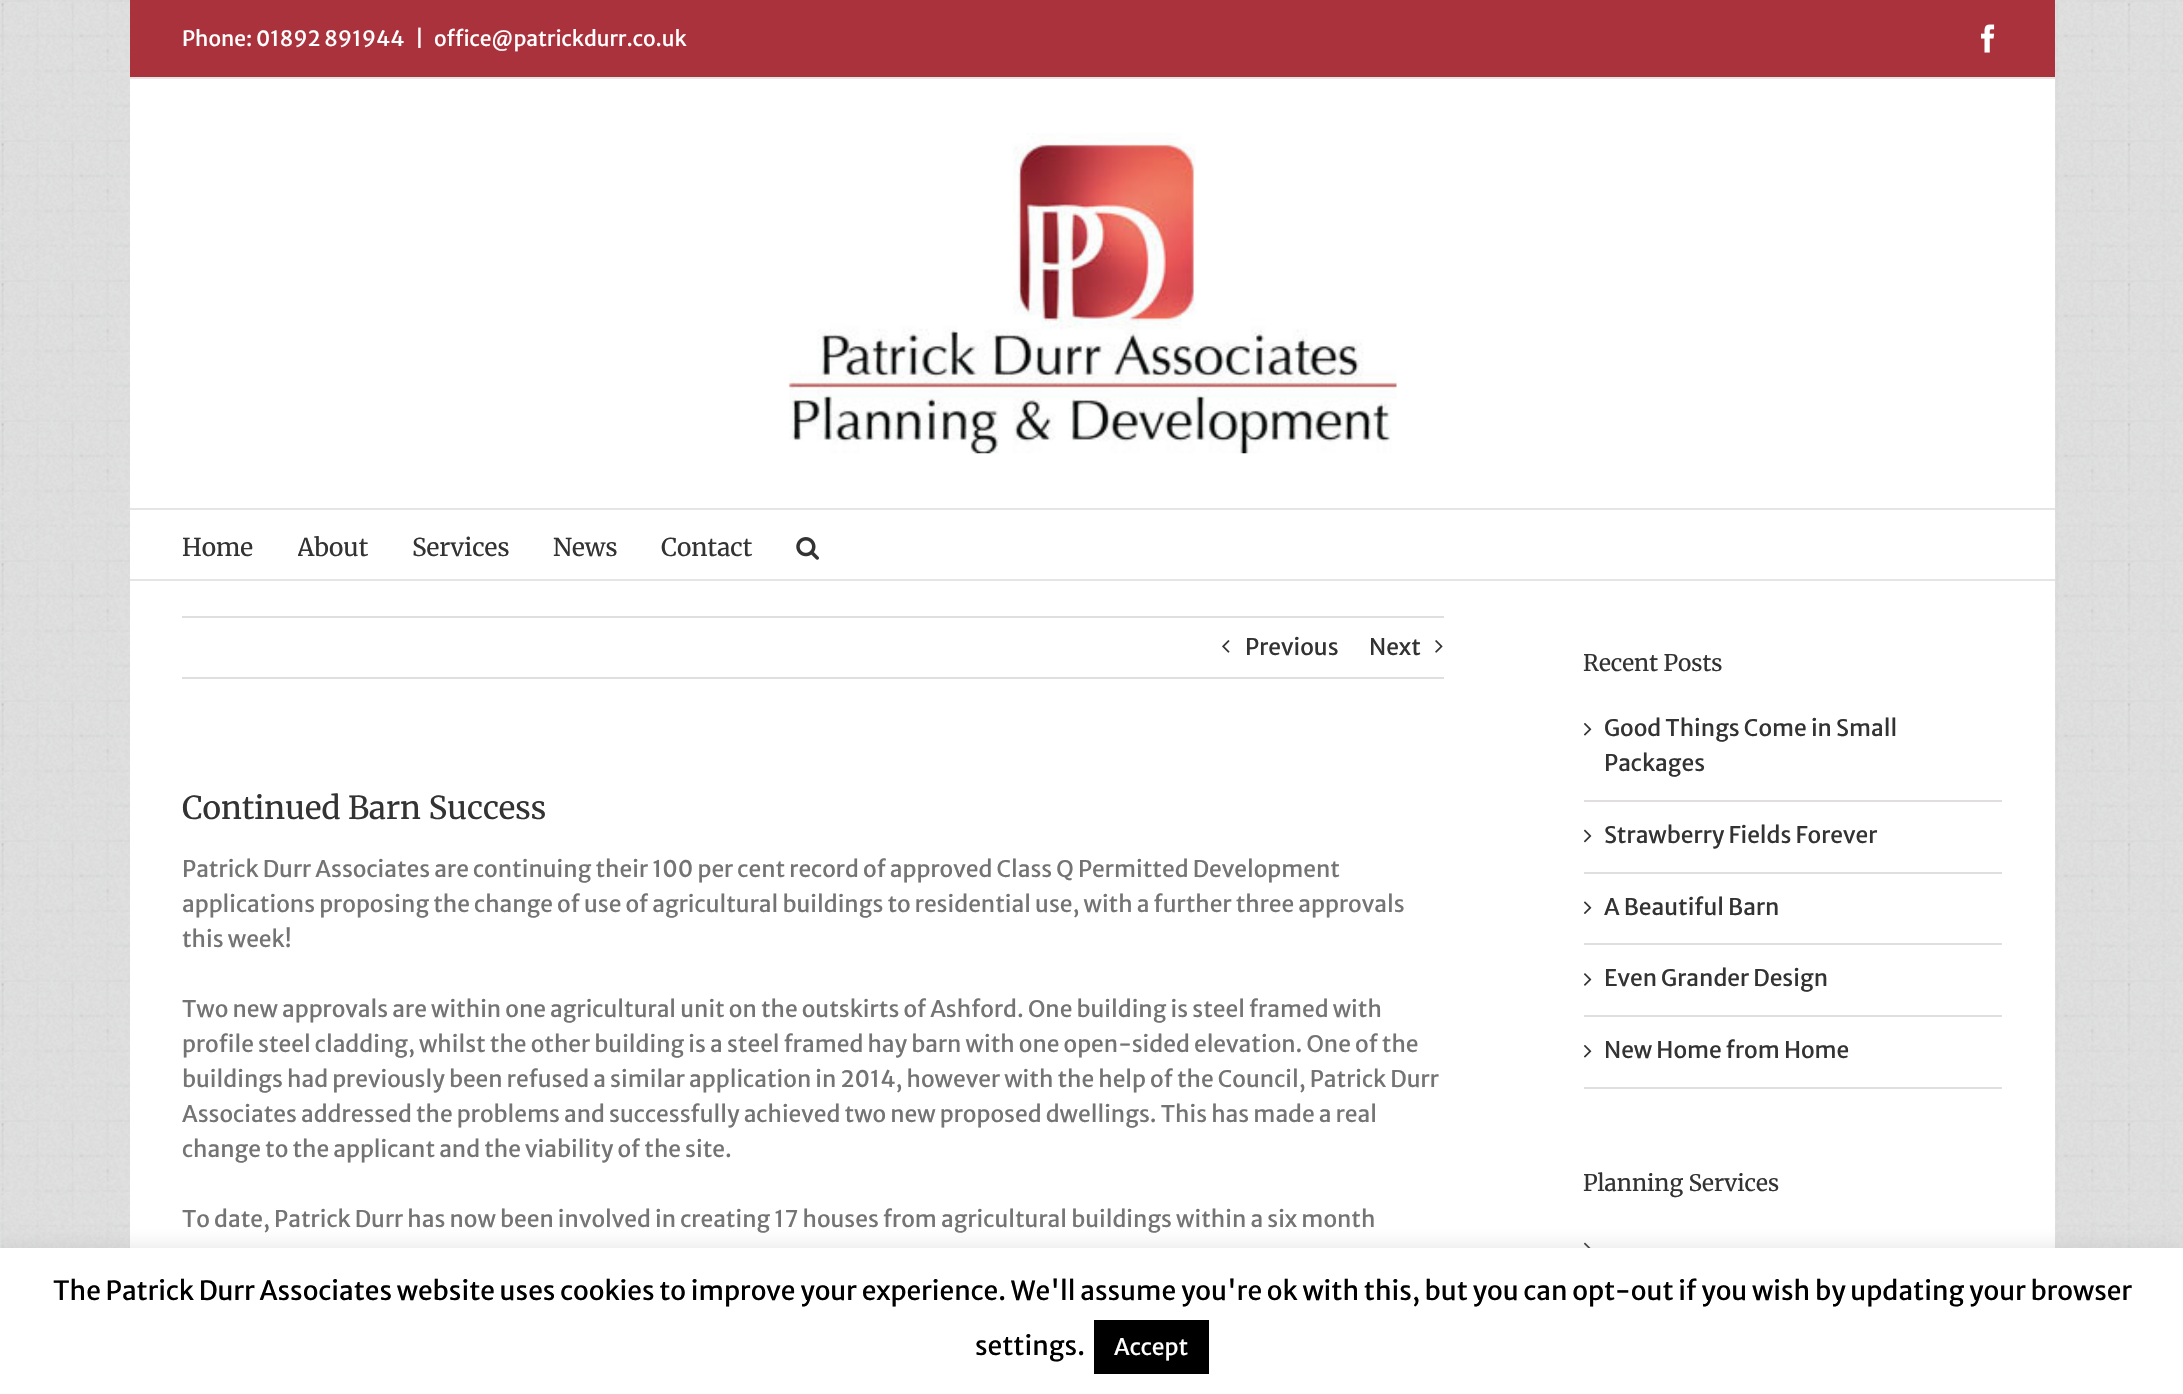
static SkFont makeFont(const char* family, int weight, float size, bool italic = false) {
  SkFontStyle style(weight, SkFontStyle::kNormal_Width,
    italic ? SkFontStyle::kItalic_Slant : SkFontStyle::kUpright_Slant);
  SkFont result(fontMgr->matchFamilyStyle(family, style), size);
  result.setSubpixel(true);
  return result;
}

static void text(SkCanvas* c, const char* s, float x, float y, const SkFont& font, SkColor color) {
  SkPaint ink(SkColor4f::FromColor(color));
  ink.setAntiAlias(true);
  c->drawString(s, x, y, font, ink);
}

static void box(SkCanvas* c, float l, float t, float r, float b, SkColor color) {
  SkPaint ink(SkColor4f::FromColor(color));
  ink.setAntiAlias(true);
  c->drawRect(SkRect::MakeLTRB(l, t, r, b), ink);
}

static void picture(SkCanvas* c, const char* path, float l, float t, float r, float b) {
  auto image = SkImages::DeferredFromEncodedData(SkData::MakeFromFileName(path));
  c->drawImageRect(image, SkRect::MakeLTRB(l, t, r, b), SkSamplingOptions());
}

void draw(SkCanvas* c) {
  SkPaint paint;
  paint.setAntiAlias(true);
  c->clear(0xffffffff);
  picture(c, "img_01.png", 0, 0, 2183, 1248);
  picture(c, "img_01.png", 0, 0, 2183, 1248);
  box(c, 130, 0, 2055, 77, 0xffaa323c);
  box(c, 130, 77, 2055, 79, 0xffe5e5e5);
  SkFont face1 = makeFont("Merriweather Sans", 400, 21);
  text(c, "Phone: 01892 891944", 182, 46, face1, 0xffffffff);
  text(c, "|", 415, 46, face1, 0xffffffff);
  text(c, "office@patrickdurr.co.uk", 434, 46, face1, 0xffffffff);
  picture(c, "img_02.png", 1981, 24, 1995, 53);
  box(c, 130, 79, 2055, 508, 0xffffffff);
  box(c, 130, 508, 2055, 510, 0xffe5e5e5);
  picture(c, "img_03.png", 788, 133, 1397, 454);
  box(c, 130, 510, 2055, 579, 0xffffffff);
  box(c, 130, 579, 2055, 581, 0xffe5e5e5);
  SkFont face2 = makeFont("Merriweather", 300, 24.5f);
  text(c, "Home", 182, 556, face2, 0xff333333);
  c->save();
  c->clipRect(SkRect::MakeLTRB(298, 509, 411, 579));
  text(c, "About", 297, 556, face2, 0xff333333);
  c->restore();
  text(c, "Services", 412, 556, face2, 0xff333333);
  text(c, "News", 553, 556, face2, 0xff333333);
  text(c, "Contact", 661, 556, face2, 0xff333333);
  picture(c, "img_04.png", 796, 537, 819, 560);
  box(c, 130, 581, 2055, 1248, 0xffffffff);
  box(c, 182, 616, 1444, 618, 0xffe0dede);
  box(c, 182, 677, 1444, 679, 0xffe0dede);
  picture(c, "img_05.png", 1222, 640, 1230, 653);
  SkFont face3 = makeFont("Merriweather Sans", 400, 22.75f);
  text(c, "Previous", 1245, 655, face3, 0xff333333);
  text(c, "Next", 1369, 655, face3, 0xff333333);
  picture(c, "img_06.png", 1435, 640, 1443, 653);
  SkFont face4 = makeFont("Merriweather", 300, 31.5f);
  text(c, "Continued Barn Success", 182, 819, face4, 0xff333333);
  text(c, "Patrick Durr Associates are continuing their 100 per cent record of approved Class Q Permitted Development", 182, 877, face3, 0xff747474);
  text(c, "applications proposing the change of use of agricultural buildings to residential use, with a further three approvals", 182, 912, face3, 0xff747474);
  text(c, "this week!", 182, 947, face3, 0xff747474);
  text(c, "Two new approvals are within one agricultural unit on the outskirts of Ashford. One building is steel framed with", 182, 1017, face3, 0xff747474);
  text(c, "profile steel cladding, whilst the other building is a steel framed hay barn with one open-sided elevation. One of the", 182, 1052, face3, 0xff747474);
  text(c, "buildings had previously been refused a similar application in 2014, however with the help of the Council, Patrick Durr", 182, 1087, face3, 0xff747474);
  text(c, "Associates addressed the problems and successfully achieved two new proposed dwellings. This has made a real", 182, 1122, face3, 0xff747474);
  text(c, "change to the applicant and the viability of the site.", 182, 1157, face3, 0xff747474);
  text(c, "To date, Patrick Durr has now been involved in creating 17 houses from agricultural buildings within a six month", 182, 1227, face3, 0xff747474);
  SkFont face5 = makeFont("Merriweather", 300, 22.75f);
  text(c, "Recent Posts", 1583, 671, face5, 0xff333333);
  box(c, 1584, 800, 2002, 802, 0xffe0dede);
  picture(c, "img_07.png", 1584, 723, 1592, 736);
  text(c, "Good Things Come in Small", 1604, 736, face3, 0xff333333);
  text(c, "Packages", 1604, 771, face3, 0xff333333);
  box(c, 1584, 872, 2002, 874, 0xffe0dede);
  picture(c, "img_08.png", 1584, 829, 1592, 843);
  text(c, "Strawberry Fields Forever", 1604, 843, face3, 0xff333333);
  box(c, 1584, 943, 2002, 945, 0xffe0dede);
  picture(c, "img_09.png", 1584, 901, 1592, 914);
  text(c, "A Beautiful Barn", 1604, 915, face3, 0xff333333);
  box(c, 1584, 1015, 2002, 1017, 0xffe0dede);
  picture(c, "img_10.png", 1584, 973, 1592, 986);
  text(c, "Even Grander Design", 1604, 986, face3, 0xff333333);
  box(c, 1584, 1087, 2002, 1089, 0xffe0dede);
  picture(c, "img_07.png", 1584, 1045, 1592, 1058);
  text(c, "New Home from Home", 1604, 1058, face3, 0xff333333);
  text(c, "Planning Services", 1583, 1191, face5, 0xff333333);
  picture(c, "img_11.png", 1584, 1242, 1591, 1248);
  paint.setColor(0x4dacabab);
  paint.setMaskFilter(SkMaskFilter::MakeBlur(kNormal_SkBlurStyle, 9));
  c->drawRect(SkRect::MakeLTRB(0, 1246, 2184, 1393), paint);
  paint.setMaskFilter(nullptr);
  box(c, 0, 1248, 2183, 1394, 0xffffffff);
  SkFont face6 = makeFont("Merriweather Sans", 400, 26.25f);
  text(c, "The Patrick Durr Associates website uses cookies to improve your experience. We'll assume you're ok with this, but you can opt-out if you wish by updating your browser", 53, 1300, face6, 0xff000000);
  text(c, "settings.", 975, 1355, face6, 0xff000000);
  box(c, 1094, 1320, 1209, 1374, 0xff000000);
  text(c, "Accept", 1114, 1355, face3, 0xffffffff);
}
